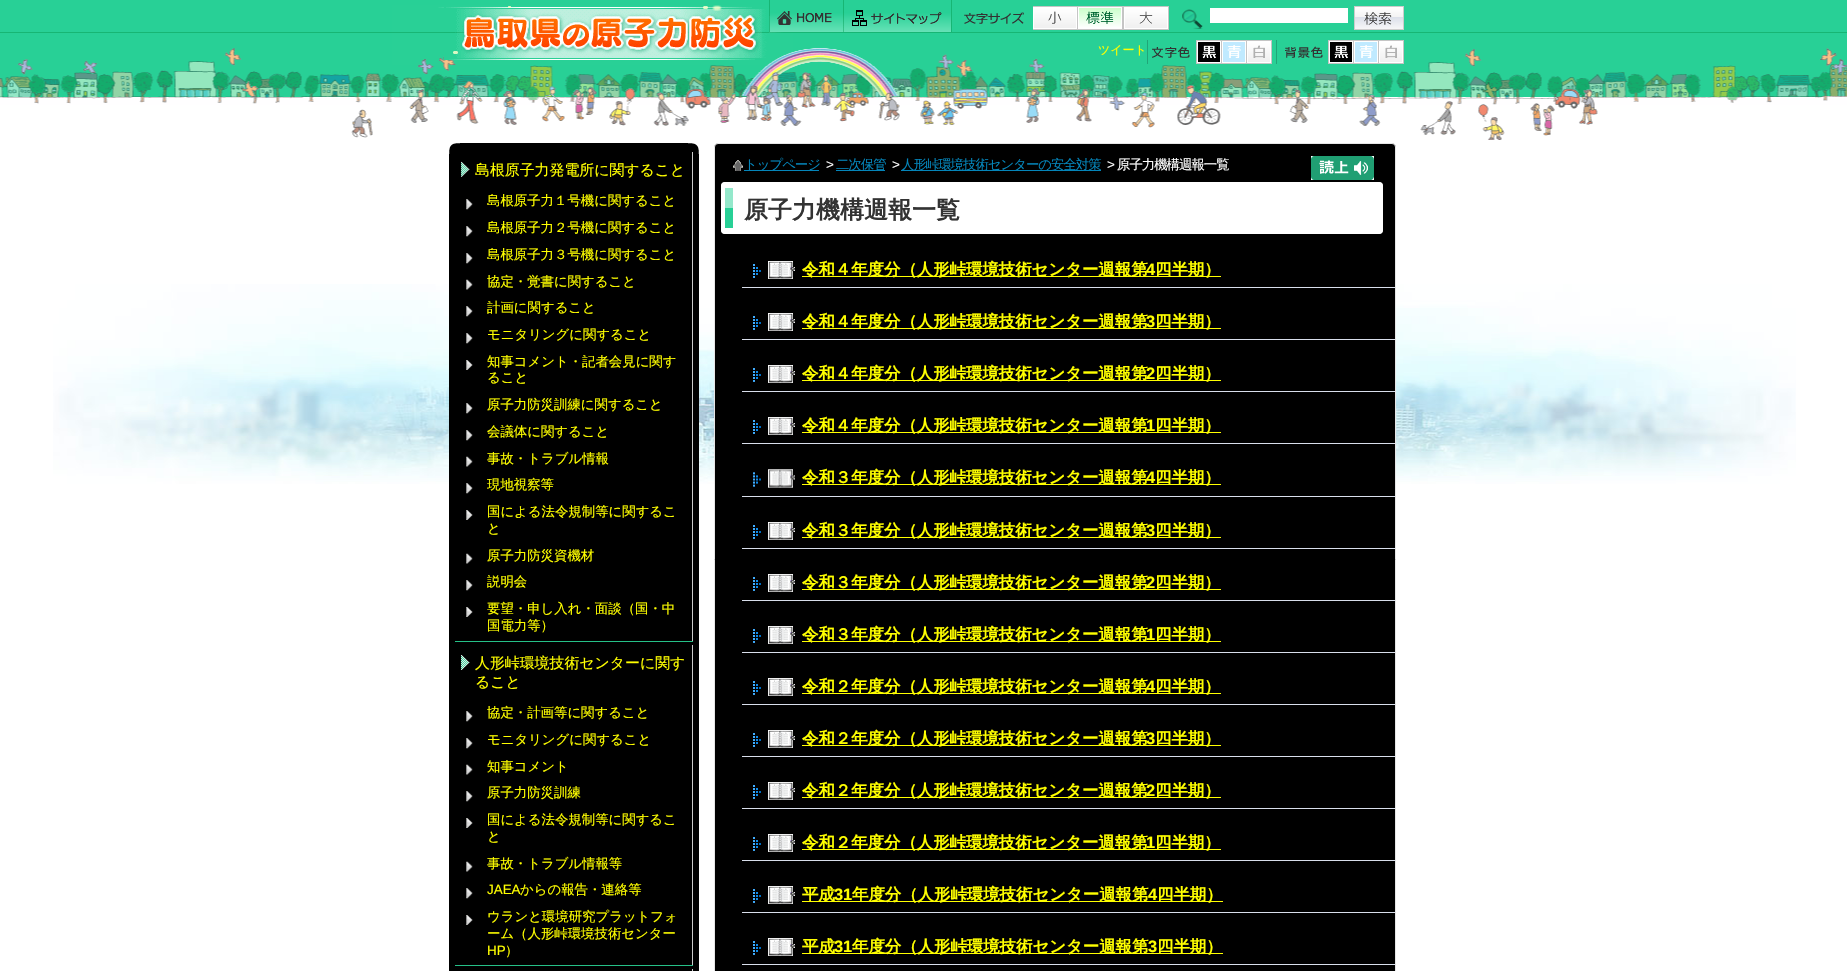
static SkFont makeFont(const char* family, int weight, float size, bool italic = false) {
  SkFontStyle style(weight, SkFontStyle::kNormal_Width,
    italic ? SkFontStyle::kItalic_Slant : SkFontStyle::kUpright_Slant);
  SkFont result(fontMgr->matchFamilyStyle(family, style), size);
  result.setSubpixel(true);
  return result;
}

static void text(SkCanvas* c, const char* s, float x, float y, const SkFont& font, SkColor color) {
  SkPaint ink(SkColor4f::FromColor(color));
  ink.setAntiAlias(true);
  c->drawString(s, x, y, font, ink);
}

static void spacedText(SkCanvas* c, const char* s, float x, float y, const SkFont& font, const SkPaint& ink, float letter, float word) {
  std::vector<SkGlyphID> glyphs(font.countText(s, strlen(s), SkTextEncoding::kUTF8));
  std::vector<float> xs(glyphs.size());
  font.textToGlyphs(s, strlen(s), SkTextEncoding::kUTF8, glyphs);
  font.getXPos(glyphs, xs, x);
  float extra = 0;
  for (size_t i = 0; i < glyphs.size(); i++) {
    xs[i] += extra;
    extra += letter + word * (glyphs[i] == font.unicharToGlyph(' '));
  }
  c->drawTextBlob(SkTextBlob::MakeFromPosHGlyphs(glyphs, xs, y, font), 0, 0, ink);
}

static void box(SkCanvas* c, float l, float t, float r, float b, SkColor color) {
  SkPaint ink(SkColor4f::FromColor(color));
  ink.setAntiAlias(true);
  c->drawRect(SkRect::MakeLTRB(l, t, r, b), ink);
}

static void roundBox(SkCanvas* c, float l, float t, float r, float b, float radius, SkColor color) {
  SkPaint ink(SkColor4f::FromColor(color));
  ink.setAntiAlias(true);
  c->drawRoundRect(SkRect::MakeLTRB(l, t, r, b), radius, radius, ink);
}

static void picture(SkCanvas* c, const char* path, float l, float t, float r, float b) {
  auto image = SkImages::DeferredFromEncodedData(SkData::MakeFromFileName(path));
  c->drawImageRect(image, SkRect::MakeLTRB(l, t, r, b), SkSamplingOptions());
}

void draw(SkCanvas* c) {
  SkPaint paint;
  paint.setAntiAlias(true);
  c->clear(0xffffffff);
  picture(c, "img_01.png", 0, 0, 1847, 105);
  picture(c, "img_02.png", 17, 5, 1847, 140);
  picture(c, "img_03.png", 444, 5, 762, 60);
  picture(c, "img_04.png", 769, 0, 844, 33);
  picture(c, "img_05.png", 844, 0, 952, 32);
  picture(c, "img_06.png", 964, 12, 1024, 24);
  picture(c, "img_07.png", 1033, 6, 1078, 30);
  picture(c, "img_08.png", 1078, 6, 1123, 30);
  picture(c, "img_09.png", 1123, 6, 1169, 30);
  picture(c, "img_10.png", 1182, 9, 1203, 29);
  box(c, 1210, 8, 1348, 23, 0xffffffff);
  picture(c, "img_11.png", 1354, 6, 1404, 30);
  SkFont face1 = makeFont("WenQuanYi Zen Hei", 500, 12);
  text(c, "ツイート", 1098, 54, face1, 0xffffff00);
  picture(c, "img_12.png", 1147, 40, 1190, 64);
  picture(c, "img_13.png", 1196, 40, 1222, 64);
  picture(c, "img_14.png", 1222, 40, 1247, 64);
  picture(c, "img_15.png", 1247, 40, 1272, 64);
  picture(c, "img_16.png", 1276, 40, 1323, 64);
  picture(c, "img_13.png", 1328, 40, 1354, 64);
  picture(c, "img_14.png", 1354, 40, 1379, 64);
  picture(c, "img_15.png", 1379, 40, 1404, 64);
  picture(c, "img_17.png", 53, 284, 1796, 484);
  box(c, 449, 143, 699, 971, 0xff000000);
  picture(c, "img_18.png", 449, 143, 699, 154);
  box(c, 692, 152, 693, 642, 0xffcccccc);
  box(c, 455, 641, 693, 642, 0xff25c087);
  picture(c, "img_19.png", 461, 161, 470, 177);
  SkFont face2 = makeFont("WenQuanYi Zen Hei", 500, 14.9f);
  text(c, "島根原子力発電所に関すること", 475, 175, face2, 0xffffff00);
  picture(c, "img_20.png", 466, 199, 473, 210);
  SkFont face3 = makeFont("WenQuanYi Zen Hei", 500, 13.4f);
  text(c, "島根原子力１号機に関すること", 487, 205, face3, 0xffffff00);
  picture(c, "img_20.png", 466, 226, 473, 237);
  text(c, "島根原子力２号機に関すること", 487, 232, face3, 0xffffff00);
  picture(c, "img_20.png", 466, 253, 473, 264);
  text(c, "島根原子力３号機に関すること", 487, 259, face3, 0xffffff00);
  picture(c, "img_21.png", 466, 279, 473, 290);
  text(c, "協定・覚書に関すること", 487, 286, face3, 0xffffff00);
  picture(c, "img_20.png", 466, 306, 473, 317);
  text(c, "計画に関すること", 487, 312, face3, 0xffffff00);
  picture(c, "img_20.png", 466, 333, 473, 344);
  text(c, "モニタリングに関すること", 487, 339, face3, 0xffffff00);
  picture(c, "img_22.png", 466, 360, 473, 370);
  text(c, "知事コメント・記者会見に関す", 487, 366, face3, 0xffffff00);
  text(c, "ること", 487, 382, face3, 0xffffff00);
  picture(c, "img_20.png", 466, 403, 473, 414);
  text(c, "原子力防災訓練に関すること", 487, 409, face3, 0xffffff00);
  picture(c, "img_20.png", 466, 430, 473, 441);
  text(c, "会議体に関すること", 487, 436, face3, 0xffffff00);
  picture(c, "img_21.png", 466, 456, 473, 467);
  text(c, "事故・トラブル情報", 487, 463, face3, 0xffffff00);
  picture(c, "img_20.png", 466, 483, 473, 494);
  text(c, "現地視察等", 487, 489, face3, 0xffffff00);
  picture(c, "img_22.png", 466, 510, 473, 520);
  text(c, "国による法令規制等に関するこ", 487, 516, face3, 0xffffff00);
  text(c, "と", 487, 533, face3, 0xffffff00);
  picture(c, "img_21.png", 466, 553, 473, 564);
  text(c, "原子力防災資機材", 487, 560, face3, 0xffffff00);
  picture(c, "img_20.png", 466, 580, 473, 591);
  text(c, "説明会", 487, 586, face3, 0xffffff00);
  picture(c, "img_22.png", 466, 607, 473, 617);
  text(c, "要望・申し入れ・面談（国・中", 487, 613, face3, 0xffffff00);
  text(c, "国電力等）", 487, 630, face3, 0xffffff00);
  box(c, 692, 645, 693, 966, 0xffcccccc);
  box(c, 455, 965, 693, 966, 0xff25c087);
  picture(c, "img_23.png", 461, 655, 470, 670);
  text(c, "人形峠環境技術センターに関す", 475, 668, face2, 0xffffff00);
  text(c, "ること", 475, 687, face2, 0xffffff00);
  picture(c, "img_20.png", 466, 711, 473, 722);
  text(c, "協定・計画等に関すること", 487, 717, face3, 0xffffff00);
  picture(c, "img_20.png", 466, 738, 473, 749);
  text(c, "モニタリングに関すること", 487, 744, face3, 0xffffff00);
  picture(c, "img_21.png", 466, 764, 473, 775);
  text(c, "知事コメント", 487, 771, face3, 0xffffff00);
  picture(c, "img_20.png", 466, 791, 473, 802);
  text(c, "原子力防災訓練", 487, 797, face3, 0xffffff00);
  picture(c, "img_22.png", 466, 818, 473, 828);
  text(c, "国による法令規制等に関するこ", 487, 824, face3, 0xffffff00);
  text(c, "と", 487, 841, face3, 0xffffff00);
  picture(c, "img_21.png", 466, 861, 473, 872);
  text(c, "事故・トラブル情報等", 487, 868, face3, 0xffffff00);
  picture(c, "img_20.png", 466, 888, 473, 899);
  SkFont face4 = makeFont("Liberation Sans", 400, 13.4f);
  text(c, "JAEA", 487, 894, face4, 0xffffff00);
  text(c, "からの報告・連絡等", 520, 894, face3, 0xffffff00);
  picture(c, "img_22.png", 466, 915, 473, 925);
  text(c, "ウランと環境研究プラットフォ", 487, 921, face3, 0xffffff00);
  text(c, "ーム（人形峠環境技術センター", 487, 938, face3, 0xffffff00);
  text(c, "HP", 487, 955, face4, 0xffffff00);
  text(c, "）", 505, 955, face3, 0xffffff00);
  box(c, 692, 969, 693, 971, 0xffcccccc);
  paint.setColor(0xff000000);
  c->drawRoundRect(SkRect::MakeLTRB(714.5f, 143.5f, 1395.5f, 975.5f), 3.5f, 3.5f, paint);
  paint.setStyle(SkPaint::kStroke_Style);
  paint.setStrokeWidth(1);
  paint.setColor(0xffe6e6e6);
  c->drawRoundRect(SkRect::MakeLTRB(714.5f, 143.5f, 1395.5f, 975.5f), 3.5f, 3.5f, paint);
  picture(c, "img_24.png", 733, 160, 743, 171);
  box(c, 744, 170, 819, 171, 0xff0485ba);
  paint.setStyle(SkPaint::kFill_Style);
  paint.setColor(0xff0485ba);
  spacedText(c, "トップページ", 744, 169, face3, paint, -1, 0);
  paint.setColor(0xffffffff);
  spacedText(c, ">", 826, 169, face4, paint, -1, 0);
  box(c, 836, 170, 885, 171, 0xff0485ba);
  paint.setColor(0xff0485ba);
  spacedText(c, "二次保管", 836, 169, face3, paint, -1, 0);
  paint.setColor(0xffffffff);
  spacedText(c, ">", 892, 169, face4, paint, -1, 0);
  box(c, 901, 170, 1101, 171, 0xff0485ba);
  paint.setColor(0xff0485ba);
  spacedText(c, "人形峠環境技術センターの安全対策", 901, 169, face3, paint, -1, 0);
  paint.setColor(0xffffffff);
  spacedText(c, ">", 1107, 169, face4, paint, -1, 0);
  spacedText(c, "原子力機構週報一覧", 1117, 169, face3, paint, -1, 0);
  picture(c, "img_25.png", 1311, 156, 1374, 180);
  roundBox(c, 721, 182, 1383, 234, 4, 0xffffffff);
  picture(c, "img_26.png", 725, 188, 733, 228);
  paint.setStyle(SkPaint::kStroke_Style);
  c->drawRoundRect(SkRect::MakeLTRB(721.5f, 182.5f, 1382.5f, 233.5f), 3.5f, 3.5f, paint);
  SkFont face5 = makeFont("WenQuanYi Zen Hei", 700, 24);
  text(c, "原子力機構週報一覧", 744, 218, face5, 0xff333333);
  picture(c, "img_27.png", 753, 261, 795, 279);
  box(c, 742, 287, 1395, 288, 0xffd8deeb);
  box(c, 802, 276, 1221, 277, 0xffffff00);
  SkFont face6 = makeFont("WenQuanYi Zen Hei", 700, 16.4f);
  text(c, "令和４年度分（人形峠環境技術センター週報第", 802, 275, face6, 0xffffff00);
  SkFont face7 = makeFont("Liberation Sans", 700, 16.4f);
  text(c, "4", 1146, 275, face7, 0xffffff00);
  text(c, "四半期）", 1155, 275, face6, 0xffffff00);
  picture(c, "img_27.png", 753, 313, 795, 331);
  box(c, 742, 339, 1395, 340, 0xffd8deeb);
  box(c, 802, 328, 1221, 329, 0xffffff00);
  text(c, "令和４年度分（人形峠環境技術センター週報第", 802, 327, face6, 0xffffff00);
  text(c, "3", 1146, 327, face7, 0xffffff00);
  text(c, "四半期）", 1155, 327, face6, 0xffffff00);
  picture(c, "img_27.png", 753, 365, 795, 383);
  box(c, 742, 391, 1395, 392, 0xffd8deeb);
  box(c, 802, 380, 1221, 381, 0xffffff00);
  text(c, "令和４年度分（人形峠環境技術センター週報第", 802, 379, face6, 0xffffff00);
  text(c, "2", 1146, 379, face7, 0xffffff00);
  text(c, "四半期）", 1155, 379, face6, 0xffffff00);
  picture(c, "img_27.png", 753, 417, 795, 435);
  box(c, 742, 443, 1395, 444, 0xffd8deeb);
  box(c, 802, 432, 1221, 433, 0xffffff00);
  text(c, "令和４年度分（人形峠環境技術センター週報第", 802, 431, face6, 0xffffff00);
  text(c, "1", 1146, 431, face7, 0xffffff00);
  text(c, "四半期）", 1155, 431, face6, 0xffffff00);
  picture(c, "img_28.png", 753, 469, 795, 488);
  box(c, 742, 496, 1395, 497, 0xffd8deeb);
  box(c, 802, 484, 1221, 485, 0xffffff00);
  text(c, "令和３年度分（人形峠環境技術センター週報第", 802, 483, face6, 0xffffff00);
  text(c, "4", 1146, 483, face7, 0xffffff00);
  text(c, "四半期）", 1155, 483, face6, 0xffffff00);
  picture(c, "img_27.png", 753, 522, 795, 540);
  box(c, 742, 548, 1395, 549, 0xffd8deeb);
  box(c, 802, 537, 1221, 538, 0xffffff00);
  text(c, "令和３年度分（人形峠環境技術センター週報第", 802, 536, face6, 0xffffff00);
  text(c, "3", 1146, 536, face7, 0xffffff00);
  text(c, "四半期）", 1155, 536, face6, 0xffffff00);
  picture(c, "img_27.png", 753, 574, 795, 592);
  box(c, 742, 600, 1395, 601, 0xffd8deeb);
  box(c, 802, 589, 1221, 590, 0xffffff00);
  text(c, "令和３年度分（人形峠環境技術センター週報第", 802, 588, face6, 0xffffff00);
  text(c, "2", 1146, 588, face7, 0xffffff00);
  text(c, "四半期）", 1155, 588, face6, 0xffffff00);
  picture(c, "img_27.png", 753, 626, 795, 644);
  box(c, 742, 652, 1395, 653, 0xffd8deeb);
  box(c, 802, 641, 1221, 642, 0xffffff00);
  text(c, "令和３年度分（人形峠環境技術センター週報第", 802, 640, face6, 0xffffff00);
  text(c, "1", 1146, 640, face7, 0xffffff00);
  text(c, "四半期）", 1155, 640, face6, 0xffffff00);
  picture(c, "img_27.png", 753, 678, 795, 696);
  box(c, 742, 704, 1395, 705, 0xffd8deeb);
  box(c, 802, 693, 1221, 694, 0xffffff00);
  text(c, "令和２年度分（人形峠環境技術センター週報第", 802, 692, face6, 0xffffff00);
  text(c, "4", 1146, 692, face7, 0xffffff00);
  text(c, "四半期）", 1155, 692, face6, 0xffffff00);
  picture(c, "img_27.png", 753, 730, 795, 748);
  box(c, 742, 756, 1395, 757, 0xffd8deeb);
  box(c, 802, 745, 1221, 746, 0xffffff00);
  text(c, "令和２年度分（人形峠環境技術センター週報第", 802, 744, face6, 0xffffff00);
  text(c, "3", 1146, 744, face7, 0xffffff00);
  text(c, "四半期）", 1155, 744, face6, 0xffffff00);
  picture(c, "img_27.png", 753, 782, 795, 800);
  box(c, 742, 808, 1395, 809, 0xffd8deeb);
  box(c, 802, 797, 1221, 798, 0xffffff00);
  text(c, "令和２年度分（人形峠環境技術センター週報第", 802, 796, face6, 0xffffff00);
  text(c, "2", 1146, 796, face7, 0xffffff00);
  text(c, "四半期）", 1155, 796, face6, 0xffffff00);
  picture(c, "img_27.png", 753, 834, 795, 852);
  box(c, 742, 860, 1395, 861, 0xffd8deeb);
  box(c, 802, 849, 1221, 850, 0xffffff00);
  text(c, "令和２年度分（人形峠環境技術センター週報第", 802, 848, face6, 0xffffff00);
  text(c, "1", 1146, 848, face7, 0xffffff00);
  text(c, "四半期）", 1155, 848, face6, 0xffffff00);
  picture(c, "img_27.png", 753, 886, 795, 904);
  box(c, 742, 912, 1395, 913, 0xffd8deeb);
  box(c, 802, 901, 1223, 902, 0xffffff00);
  text(c, "平成", 802, 900, face6, 0xffffff00);
  text(c, "31", 834, 900, face7, 0xffffff00);
  text(c, "年度分（人形峠環境技術センター週報第", 852, 900, face6, 0xffffff00);
  text(c, "4", 1148, 900, face7, 0xffffff00);
  text(c, "四半期）", 1157, 900, face6, 0xffffff00);
  picture(c, "img_27.png", 753, 938, 795, 956);
  box(c, 742, 964, 1395, 965, 0xffd8deeb);
  box(c, 802, 953, 1223, 954, 0xffffff00);
  text(c, "平成", 802, 952, face6, 0xffffff00);
  text(c, "31", 834, 952, face7, 0xffffff00);
  text(c, "年度分（人形峠環境技術センター週報第", 852, 952, face6, 0xffffff00);
  text(c, "3", 1148, 952, face7, 0xffffff00);
  text(c, "四半期）", 1157, 952, face6, 0xffffff00);
}
